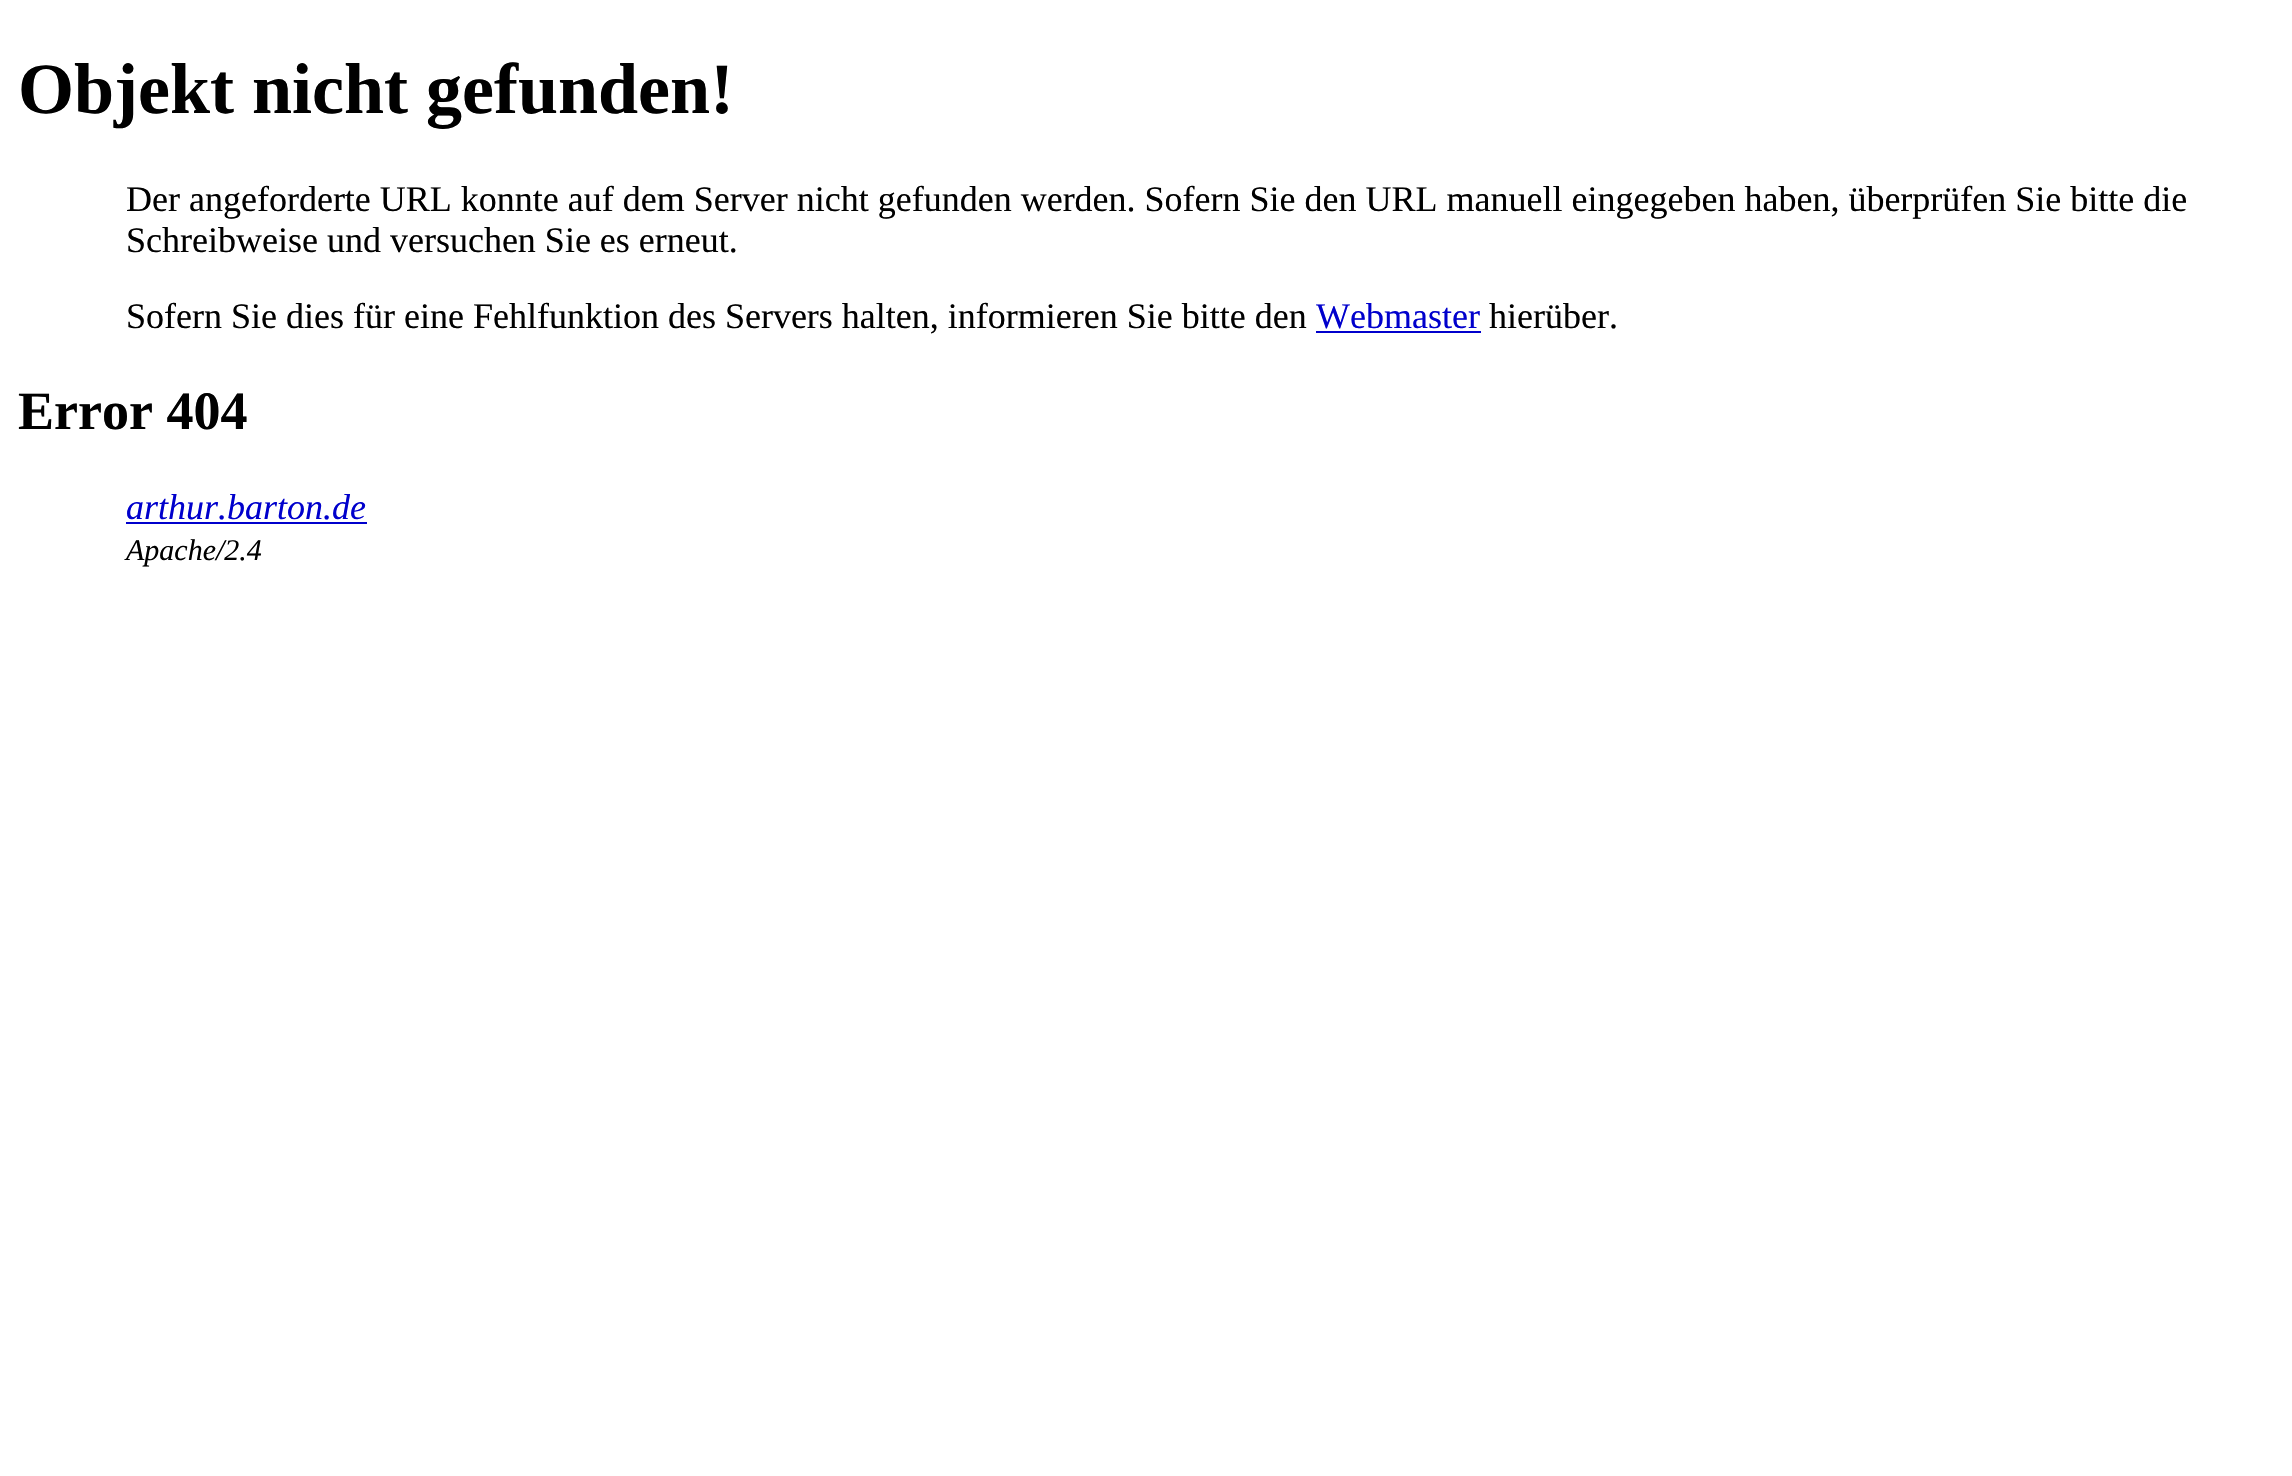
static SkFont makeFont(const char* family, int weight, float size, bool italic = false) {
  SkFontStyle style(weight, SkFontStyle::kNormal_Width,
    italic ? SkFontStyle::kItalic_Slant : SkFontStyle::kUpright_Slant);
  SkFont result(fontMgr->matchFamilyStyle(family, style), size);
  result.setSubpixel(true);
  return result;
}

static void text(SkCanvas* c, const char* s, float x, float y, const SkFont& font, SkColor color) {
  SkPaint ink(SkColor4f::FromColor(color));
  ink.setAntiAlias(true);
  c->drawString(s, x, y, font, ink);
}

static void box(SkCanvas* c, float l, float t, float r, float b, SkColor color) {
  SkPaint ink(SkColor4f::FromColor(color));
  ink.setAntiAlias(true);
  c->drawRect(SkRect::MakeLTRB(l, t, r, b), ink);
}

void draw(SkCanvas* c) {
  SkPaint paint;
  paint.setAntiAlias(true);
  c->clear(0xffffffff);
  SkFont face1 = makeFont("Liberation Serif", 700, 72);
  text(c, "Objekt nicht gefunden!", 18, 113, face1, 0xff000000);
  SkFont face2 = makeFont("Liberation Serif", 400, 36);
  text(c, "Der angeforderte URL konnte auf dem Server nicht gefunden werden. Sofern Sie den URL manuell eingegeben haben, überprüfen Sie bitte die", 126, 211, face2, 0xff000000);
  text(c, "Schreibweise und versuchen Sie es erneut.", 126, 252, face2, 0xff000000);
  text(c, "Sofern Sie dies für eine Fehlfunktion des Servers halten, informieren Sie bitte den", 126, 328, face2, 0xff000000);
  text(c, "Webmaster", 1316, 328, face2, 0xff0000cc);
  box(c, 1316, 331, 1481, 333, 0xff0000cc);
  text(c, "hierüber.", 1489, 328, face2, 0xff000000);
  SkFont face3 = makeFont("Liberation Serif", 700, 54);
  text(c, "Error 404", 18, 429, face3, 0xff000000);
  SkFont face4 = makeFont("Liberation Serif", 400, 36, true);
  text(c, "arthur.barton.de", 126, 519, face4, 0xff0000cc);
  box(c, 126, 522, 367, 524, 0xff0000cc);
  SkFont face5 = makeFont("Liberation Serif", 400, 30, true);
  text(c, "Apache/2.4", 126, 560, face5, 0xff000000);
}
